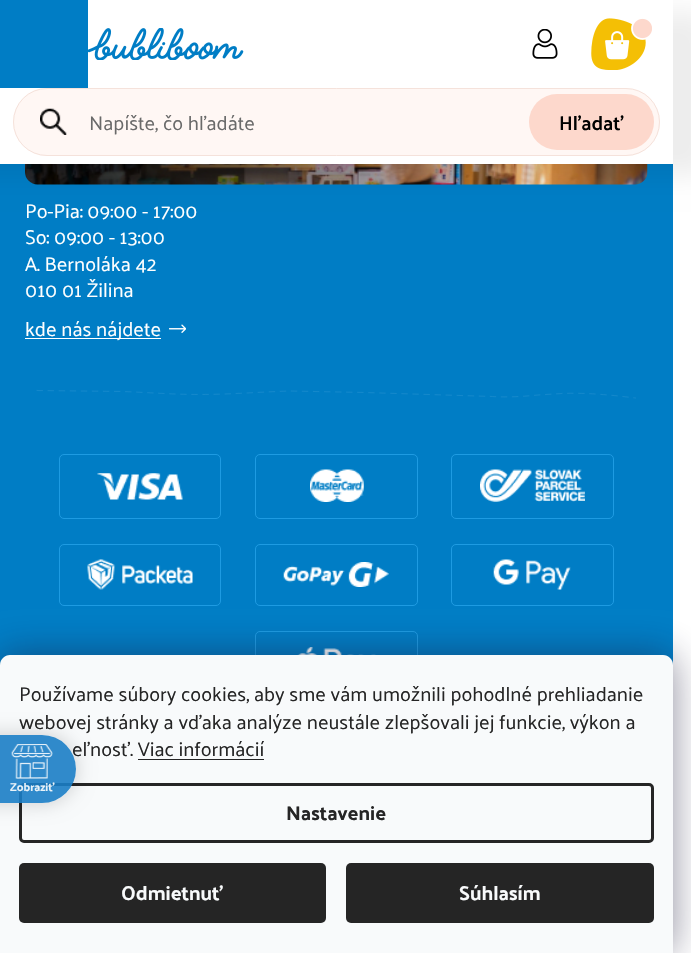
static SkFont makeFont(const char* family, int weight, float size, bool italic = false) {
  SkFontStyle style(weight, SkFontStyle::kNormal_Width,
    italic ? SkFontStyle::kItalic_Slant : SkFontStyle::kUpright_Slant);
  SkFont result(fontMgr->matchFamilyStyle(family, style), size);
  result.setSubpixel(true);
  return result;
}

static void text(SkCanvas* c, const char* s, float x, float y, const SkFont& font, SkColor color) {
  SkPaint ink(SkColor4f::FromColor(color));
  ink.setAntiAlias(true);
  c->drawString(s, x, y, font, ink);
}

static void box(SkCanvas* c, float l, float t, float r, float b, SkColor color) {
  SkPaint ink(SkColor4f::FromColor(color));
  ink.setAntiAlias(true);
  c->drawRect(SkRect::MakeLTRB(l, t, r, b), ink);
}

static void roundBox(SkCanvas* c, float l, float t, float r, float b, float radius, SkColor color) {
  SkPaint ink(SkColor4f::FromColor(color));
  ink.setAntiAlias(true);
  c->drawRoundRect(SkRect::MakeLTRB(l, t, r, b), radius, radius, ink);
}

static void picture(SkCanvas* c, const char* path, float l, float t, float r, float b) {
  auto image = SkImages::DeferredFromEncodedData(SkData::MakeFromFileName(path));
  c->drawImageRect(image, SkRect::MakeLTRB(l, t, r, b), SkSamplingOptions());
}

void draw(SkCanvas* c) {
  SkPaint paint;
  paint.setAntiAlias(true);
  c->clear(0xffffffff);
  box(c, 0, 164, 673, 665, 0xff007dc5);
  picture(c, "img_05.png", 25, 164, 648, 185);
  paint.setColor(0x12000000);
  paint.setMaskFilter(SkMaskFilter::MakeBlur(kNormal_SkBlurStyle, 12.5f));
  c->drawRect(SkRect::MakeLTRB(-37, 13, 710, 175), paint);
  paint.setMaskFilter(nullptr);
  box(c, 88, 0, 673, 88, 0xffffffff);
  box(c, 0, 0, 88, 88, 0xff007dc5);
  picture(c, "img_01.png", 532, 29, 558, 59);
  picture(c, "img_02.png", 591, 18, 652, 70);
  picture(c, "img_03.png", 88, 28, 244, 60);
  box(c, 0, 88, 673, 164, 0xffffffff);
  roundBox(c, 13, 88, 660, 156, 34, 0xfffff7f4);
  picture(c, "img_04.png", 40, 108, 67, 135);
  paint.setStyle(SkPaint::kStroke_Style);
  paint.setStrokeWidth(1);
  paint.setColor(0xfff5e2db);
  c->drawRoundRect(SkRect::MakeLTRB(13.5f, 88.5f, 659.5f, 155.5f), 33.5f, 33.5f, paint);
  SkFont face1 = makeFont("Palanquin", 400, 20);
  text(c, "Napíšte, čo hľadáte", 89, 130, face1, 0xff6a6a6a);
  roundBox(c, 529, 94, 654, 150, 28, 0xfffdd8cc);
  SkFont face2 = makeFont("Palanquin", 600, 20);
  text(c, "Hľadať", 559, 130, face2, 0xff000000);
  text(c, "Po-Pia: 09:00 - 17:00", 25, 218, face1, 0xffffffff);
  text(c, "So: 09:00 - 13:00", 25, 244, face1, 0xffffffff);
  text(c, "A. Bernoláka 42", 25, 271, face1, 0xffffffff);
  text(c, "010 01 Žilina", 25, 297, face1, 0xffffffff);
  picture(c, "img_06.png", 169, 324, 186, 333);
  box(c, 25, 338, 161, 339, 0xffffffff);
  text(c, "kde nás nájdete", 25, 336, face1, 0xffffffff);
  paint.setStrokeWidth(0.5f);
  paint.setStrokeCap(SkPaint::kRound_Cap);
  paint.setColor(0xff2893d1);
  paint.setPathEffect(SkDashPathEffect::Make({{5.53f, 5.53f}}, 0));
  c->drawPath(SkPathBuilder().moveTo(37, 390.5f).lineTo(123, 391.5f).cubicTo(148.5f, 392.5f, 173.5f, 394.5f, 199, 394.5f).cubicTo(229.5f, 394.5f, 259.5f, 392, 289.5f, 391).lineTo(364.5f, 392.5f).lineTo(492.5f, 396.5f).cubicTo(507.5f, 397.5f, 523, 396.5f, 538, 395).lineTo(562, 393.5f).cubicTo(586.5f, 392.5f, 611.5f, 395, 635.5f, 398).detach(), paint);
  paint.setPathEffect(nullptr);
  paint.setStrokeWidth(1);
  paint.setStrokeCap(SkPaint::kButt_Cap);
  paint.setColor(0xff1e9be2);
  c->drawRoundRect(SkRect::MakeLTRB(59.5f, 454.5f, 220.5f, 518.5f), 4.5f, 4.5f, paint);
  picture(c, "img_07.png", 97, 473, 183, 500);
  c->drawRoundRect(SkRect::MakeLTRB(255.5f, 454.5f, 417.5f, 518.5f), 4.5f, 4.5f, paint);
  picture(c, "img_08.png", 310, 469, 364, 502);
  c->drawRoundRect(SkRect::MakeLTRB(451.5f, 454.5f, 613.5f, 518.5f), 4.5f, 4.5f, paint);
  picture(c, "img_09.png", 480, 469, 585, 502);
  c->drawRoundRect(SkRect::MakeLTRB(59.5f, 544.5f, 220.5f, 605.5f), 4.5f, 4.5f, paint);
  picture(c, "img_10.png", 87, 559, 193, 590);
  c->drawRoundRect(SkRect::MakeLTRB(255.5f, 544.5f, 417.5f, 605.5f), 4.5f, 4.5f, paint);
  picture(c, "img_11.png", 283, 562, 389, 587);
  c->drawRoundRect(SkRect::MakeLTRB(451.5f, 544.5f, 613.5f, 605.5f), 4.5f, 4.5f, paint);
  picture(c, "img_12.png", 493, 559, 571, 590);
  c->drawRoundRect(SkRect::MakeLTRB(255.5f, 631.5f, 417.5f, 695.5f), 4.5f, 4.5f, paint);
  picture(c, "img_13.png", 297, 647, 376, 655);
  paint.setStyle(SkPaint::kFill_Style);
  paint.setColor(0x801b1939);
  paint.setMaskFilter(SkMaskFilter::MakeBlur(kNormal_SkBlurStyle, 19));
  c->drawRoundRect(SkRect::MakeLTRB(0, 655, 673, 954), 10, 10, paint);
  paint.setMaskFilter(nullptr);
  paint.setColor(0xfff8fafb);
  c->drawPath(SkPathBuilder().moveTo(10, 655).lineTo(663, 655).cubicTo(668.5f, 655, 673, 659.5f, 673, 665).lineTo(673, 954).lineTo(0, 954).lineTo(0, 665).cubicTo(0, 659.5f, 4.5f, 655, 10, 655).close().detach(), paint);
  text(c, "Používame súbory cookies, aby sme vám umožnili pohodlné prehliadanie", 19, 701, face1, 0xff252525);
  text(c, "webovej stránky a vďaka analýze neustále zlepšovali jej funkcie, výkon a", 19, 729, face1, 0xff252525);
  text(c, "eľnosť. Viac informácií", 72, 756, face1, 0xff252525);
  box(c, 138, 759, 264, 760, 0xff252525);
  paint.setStyle(SkPaint::kStroke_Style);
  paint.setStrokeWidth(3);
  paint.setColor(0xff252525);
  c->drawRoundRect(SkRect::MakeLTRB(20.5f, 784.5f, 652.5f, 841.5f), 3.5f, 3.5f, paint);
  SkFont face3 = makeFont("Palanquin", 700, 20);
  text(c, "Nastavenie", 286, 820, face3, 0xff252525);
  roundBox(c, 19, 863, 326, 923, 5, 0xff252525);
  text(c, "Odmietnuť", 121, 900, face3, 0xfff8fafb);
  roundBox(c, 346, 863, 654, 923, 5, 0xff252525);
  text(c, "Súhlasím", 459, 900, face3, 0xfff8fafb);
  c->save();
  c->clipPath(SkPathBuilder(SkPathFillType::kEvenOdd).moveTo(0, 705).lineTo(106, 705).lineTo(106, 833).lineTo(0, 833).close().moveTo(-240, 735).lineTo(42, 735).cubicTo(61, 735, 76, 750, 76, 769).cubicTo(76, 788, 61, 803, 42, 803).lineTo(-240, 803).cubicTo(-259, 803, -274, 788, -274, 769).cubicTo(-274, 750, -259, 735, -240, 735).close().detach(), true);
  paint.setStyle(SkPaint::kFill_Style);
  paint.setColor(0x2e000000);
  paint.setMaskFilter(SkMaskFilter::MakeBlur(kNormal_SkBlurStyle, 9.5f));
  c->drawRoundRect(SkRect::MakeLTRB(-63, 735, 76, 803), 34, 34, paint);
  paint.setMaskFilter(nullptr);
  c->restore();
  roundBox(c, -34, 735, 76, 803, 34, 0xe6197dc5);
  picture(c, "img_14.png", 11, 744, 53, 779);
  SkFont face4 = makeFont("Palanquin", 700, 11.5f);
  text(c, "Zobraziť", 10, 791, face4, 0xffeaf3f9);
}
